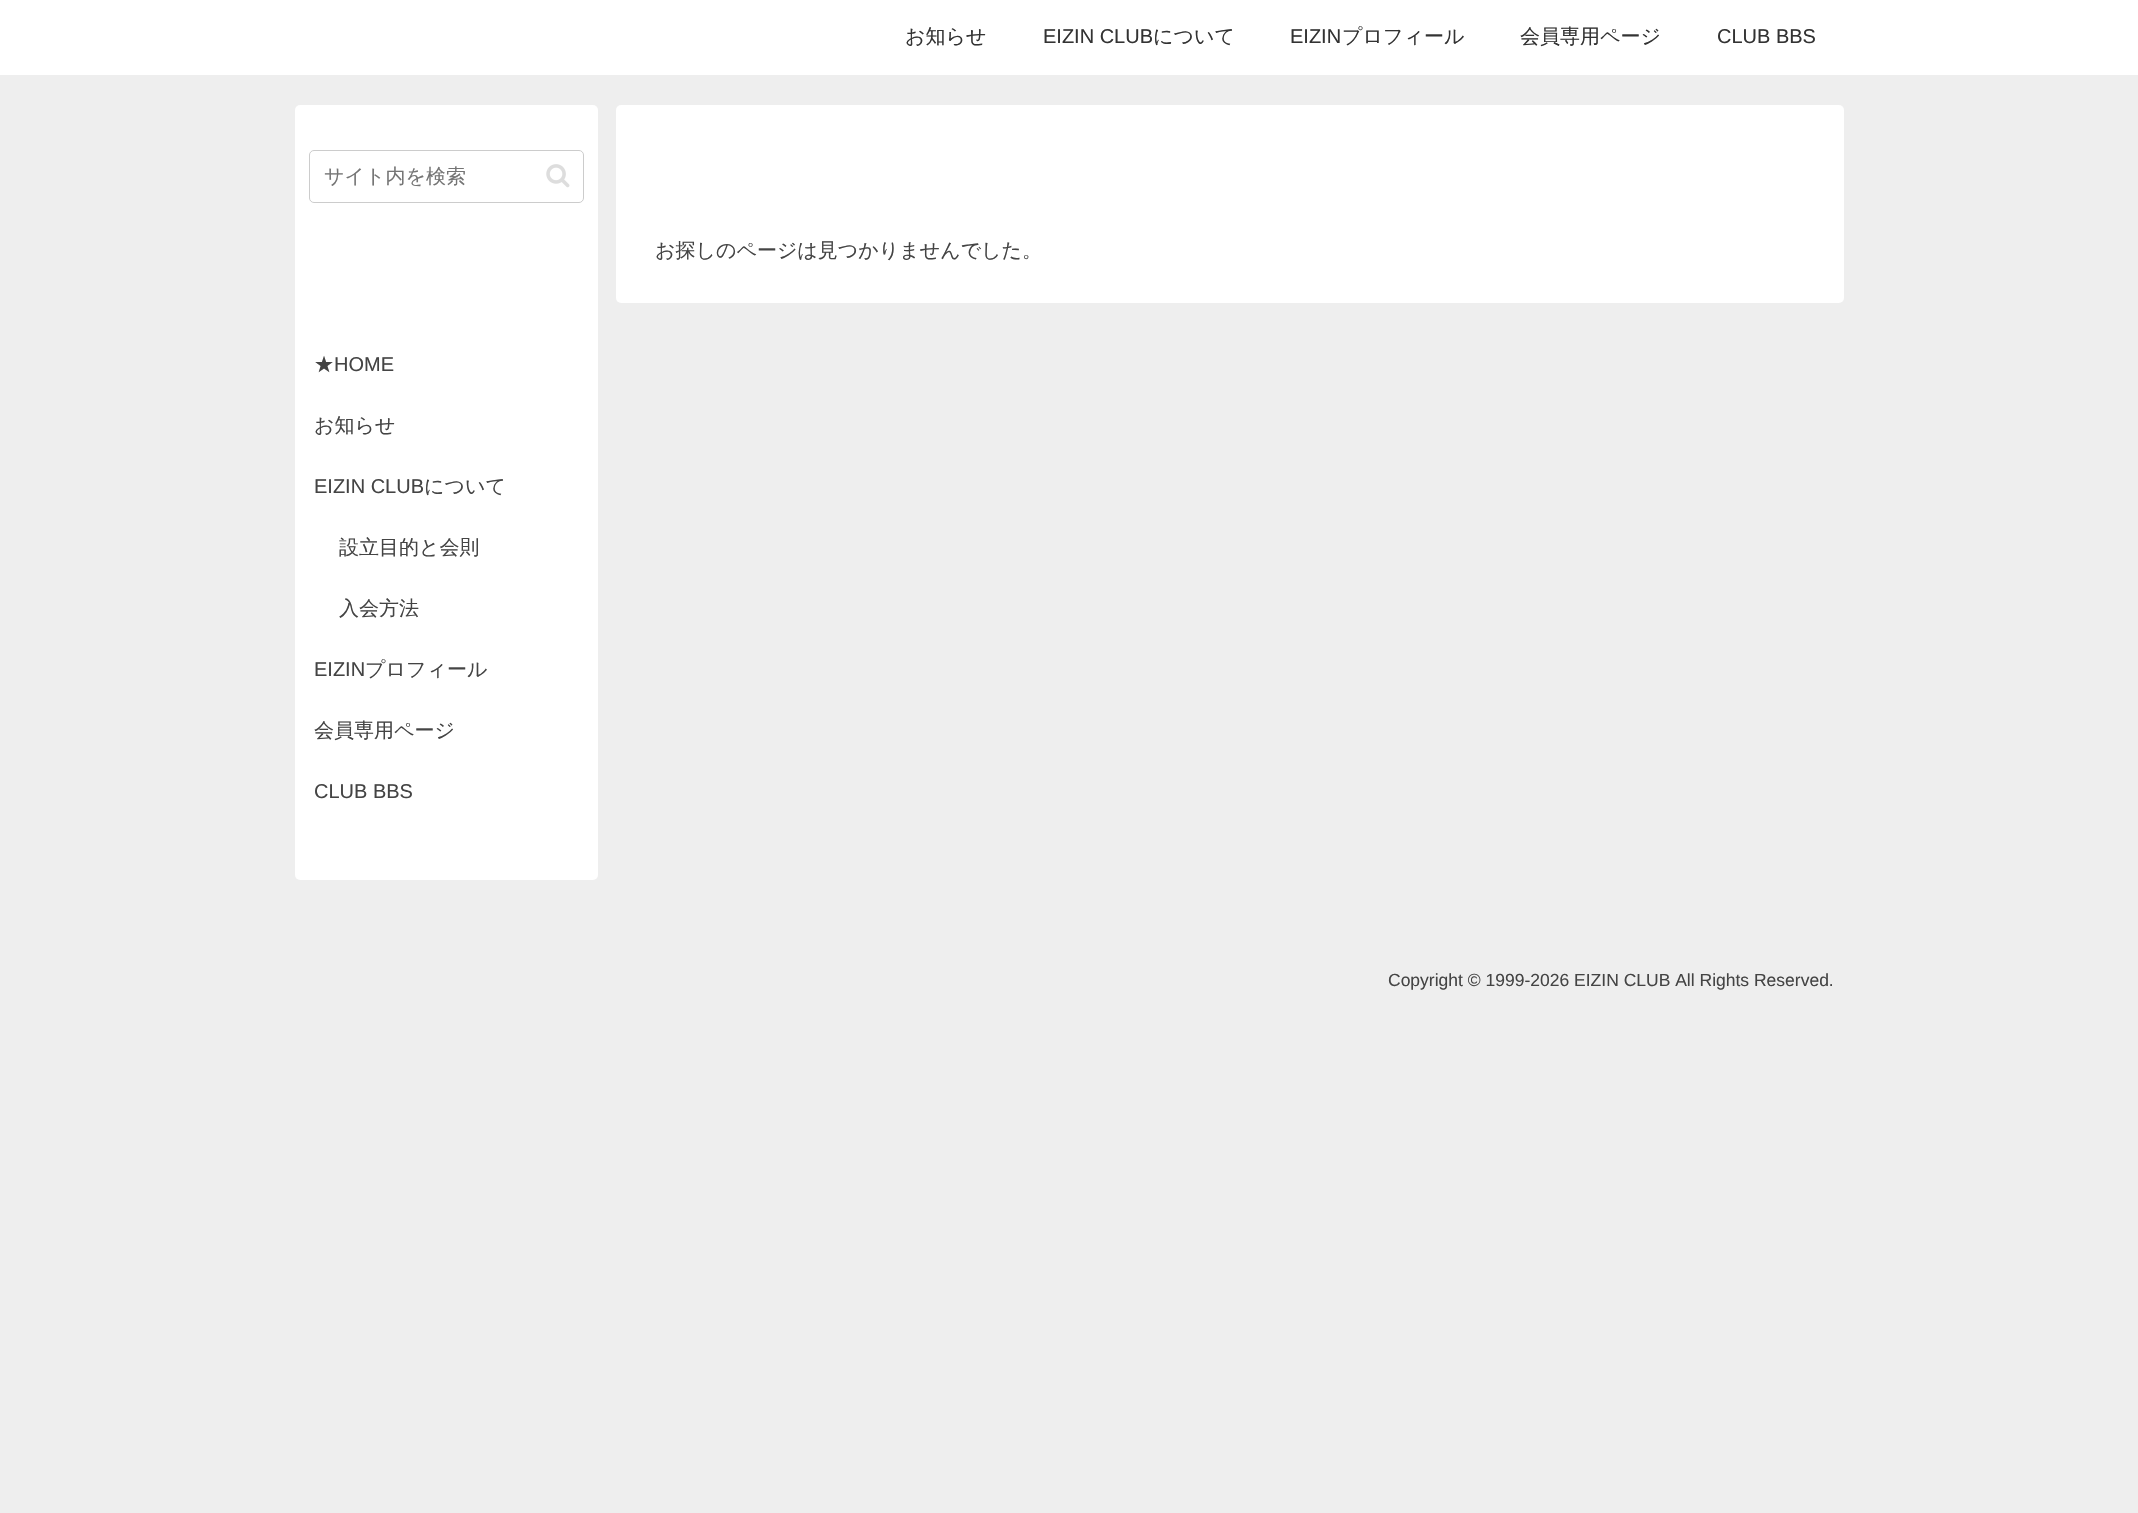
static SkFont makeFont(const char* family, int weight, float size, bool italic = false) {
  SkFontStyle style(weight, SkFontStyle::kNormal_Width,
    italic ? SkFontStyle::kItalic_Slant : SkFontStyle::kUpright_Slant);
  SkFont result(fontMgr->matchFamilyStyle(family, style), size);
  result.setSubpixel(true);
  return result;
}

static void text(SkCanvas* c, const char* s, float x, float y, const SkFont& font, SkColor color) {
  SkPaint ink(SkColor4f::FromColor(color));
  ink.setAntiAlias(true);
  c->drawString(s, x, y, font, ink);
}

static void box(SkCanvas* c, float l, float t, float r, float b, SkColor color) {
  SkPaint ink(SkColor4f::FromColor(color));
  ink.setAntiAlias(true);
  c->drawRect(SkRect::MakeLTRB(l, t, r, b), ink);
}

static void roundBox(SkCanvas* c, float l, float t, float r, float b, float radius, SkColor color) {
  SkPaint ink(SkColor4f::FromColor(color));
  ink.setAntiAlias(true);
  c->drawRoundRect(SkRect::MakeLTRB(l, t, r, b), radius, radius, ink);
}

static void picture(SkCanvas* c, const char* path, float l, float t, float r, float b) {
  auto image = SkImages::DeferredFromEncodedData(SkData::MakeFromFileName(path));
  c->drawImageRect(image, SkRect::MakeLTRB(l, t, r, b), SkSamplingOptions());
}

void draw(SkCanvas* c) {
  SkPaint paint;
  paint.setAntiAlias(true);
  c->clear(0xffeeeeee);
  box(c, 0, 0, 2138, 75, 0xffffffff);
  SkFont face1 = makeFont("WenQuanYi Zen Hei", 500, 20);
  text(c, "お知らせ", 905, 43, face1, 0xff333333);
  SkFont face2 = makeFont("Liberation Sans", 400, 20);
  text(c, "EIZIN CLUB", 1043, 43, face2, 0xff333333);
  text(c, "について", 1153, 43, face1, 0xff333333);
  text(c, "EIZIN", 1290, 43, face2, 0xff333333);
  text(c, "プロフィール", 1342, 43, face1, 0xff333333);
  text(c, "会員専用ページ", 1520, 43, face1, 0xff333333);
  text(c, "CLUB BBS", 1717, 43, face2, 0xff333333);
  roundBox(c, 295, 105, 598, 880, 5, 0xffffffff);
  paint.setStyle(SkPaint::kStroke_Style);
  paint.setStrokeWidth(1);
  paint.setColor(0xffcccccc);
  c->drawRoundRect(SkRect::MakeLTRB(309.5f, 150.5f, 583.5f, 202.5f), 4.5f, 4.5f, paint);
  text(c, "サイト内を検索", 324, 183, face1, 0xff757575);
  picture(c, "img_01.png", 546, 164, 570, 188);
  text(c, "★", 314, 371, face1, 0xff444444);
  text(c, "HOME", 334, 371, face2, 0xff444444);
  text(c, "お知らせ", 314, 432, face1, 0xff444444);
  text(c, "EIZIN CLUB", 314, 493, face2, 0xff444444);
  text(c, "について", 424, 493, face1, 0xff444444);
  text(c, "設立目的と会則", 339, 554, face1, 0xff444444);
  text(c, "入会方法", 339, 615, face1, 0xff444444);
  text(c, "EIZIN", 314, 676, face2, 0xff444444);
  text(c, "プロフィール", 365, 676, face1, 0xff444444);
  text(c, "会員専用ページ", 314, 737, face1, 0xff444444);
  text(c, "CLUB BBS", 314, 798, face2, 0xff444444);
  roundBox(c, 616, 105, 1844, 303, 5, 0xffffffff);
  text(c, "お探しのページは見つかりませんでした。", 655, 257, face1, 0xff444444);
  SkFont face3 = makeFont("Liberation Sans", 400, 17.5f);
  text(c, "Copyright © 1999-2026 EIZIN CLUB All Rights Reserved.", 1388, 986, face3, 0xff444444);
}
